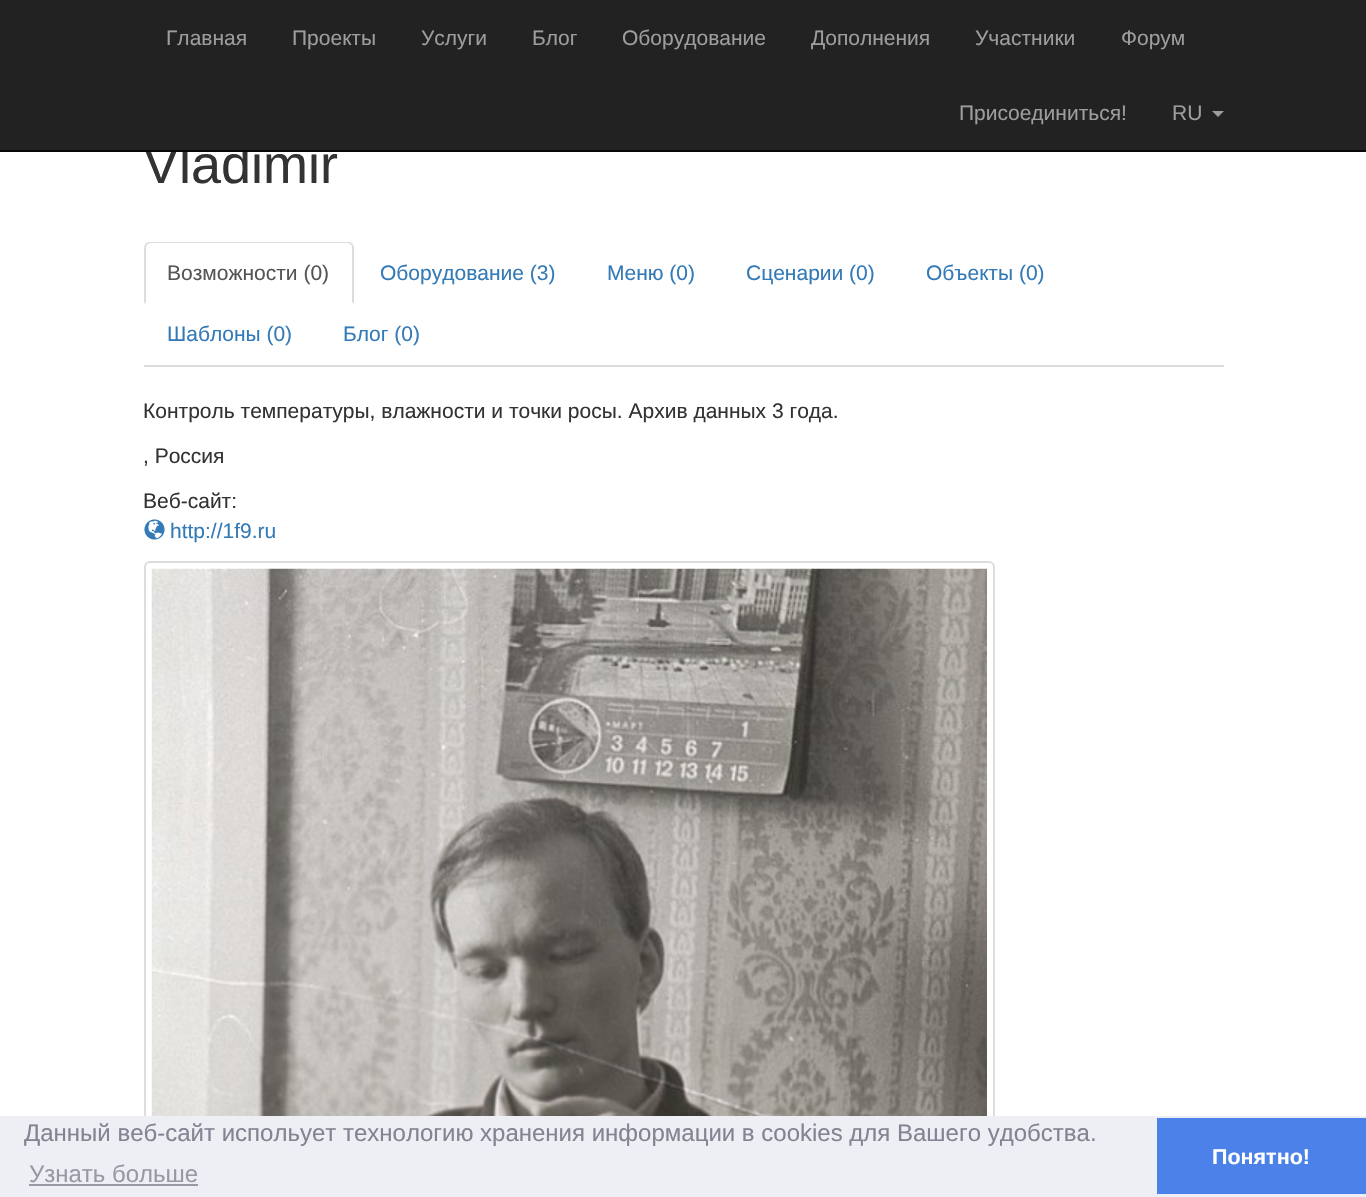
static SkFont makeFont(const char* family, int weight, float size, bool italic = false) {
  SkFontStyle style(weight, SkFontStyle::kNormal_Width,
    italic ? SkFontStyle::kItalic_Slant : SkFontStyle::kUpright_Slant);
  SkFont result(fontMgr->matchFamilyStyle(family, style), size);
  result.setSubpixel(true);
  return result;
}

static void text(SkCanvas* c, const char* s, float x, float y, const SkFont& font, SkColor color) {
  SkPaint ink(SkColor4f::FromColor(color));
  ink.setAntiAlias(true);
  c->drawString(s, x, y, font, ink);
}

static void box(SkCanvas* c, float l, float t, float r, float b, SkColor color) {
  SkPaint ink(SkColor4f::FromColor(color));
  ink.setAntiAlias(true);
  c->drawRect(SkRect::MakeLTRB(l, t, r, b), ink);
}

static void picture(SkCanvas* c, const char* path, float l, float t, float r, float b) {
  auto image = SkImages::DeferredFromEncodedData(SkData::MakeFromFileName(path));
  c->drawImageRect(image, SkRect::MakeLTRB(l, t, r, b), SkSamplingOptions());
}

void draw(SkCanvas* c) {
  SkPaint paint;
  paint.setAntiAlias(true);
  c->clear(0xffffffff);
  SkFont face1 = makeFont("Liberation Sans", 400, 54);
  text(c, "Vladimir", 143, 183, face1, 0xff333333);
  box(c, 0, 0, 1366, 150, 0xff222222);
  box(c, 0, 150, 1366, 152, 0xff080808);
  SkFont face2 = makeFont("Liberation Sans", 400, 21);
  text(c, "Главная", 166, 45, face2, 0xff9d9d9d);
  text(c, "Проекты", 292, 45, face2, 0xff9d9d9d);
  text(c, "Услуги", 421, 45, face2, 0xff9d9d9d);
  text(c, "Блог", 532, 45, face2, 0xff9d9d9d);
  text(c, "Оборудование", 622, 45, face2, 0xff9d9d9d);
  text(c, "Дополнения", 811, 45, face2, 0xff9d9d9d);
  text(c, "Участники", 975, 45, face2, 0xff9d9d9d);
  text(c, "Форум", 1121, 45, face2, 0xff9d9d9d);
  text(c, "Присоединиться!", 959, 120, face2, 0xff9d9d9d);
  text(c, "RU", 1172, 120, face2, 0xff9d9d9d);
  paint.setColor(0xff9d9d9d);
  c->drawPath(SkPathBuilder().moveTo(1212, 111).lineTo(1224, 111).lineTo(1218, 117).close().detach(), paint);
  box(c, 144, 365, 1224, 367, 0xffdddddd);
  paint.setColor(0xffdddddd);
  c->drawPath(SkPathBuilder().moveTo(150, 242).cubicTo(149, 242, 147, 242, 146, 243).lineTo(147, 245).cubicTo(148, 244, 149, 243, 150, 243).lineTo(348, 243).cubicTo(349, 243, 350, 244, 351, 245).lineTo(352, 243).cubicTo(351, 242, 349, 242, 348, 242).close().detach(), paint);
  c->drawPath(SkPathBuilder().moveTo(352, 243).cubicTo(353, 244, 354, 246, 354, 248).lineTo(354, 304).lineTo(352, 302).lineTo(352, 248).cubicTo(352, 247, 352, 245, 351, 245).close().detach(), paint);
  c->drawPath(SkPathBuilder().moveTo(144, 248).lineTo(144, 304).lineTo(146, 302).lineTo(146, 248).cubicTo(146, 247, 146, 245, 147, 245).lineTo(146, 243).cubicTo(145, 244, 144, 246, 144, 248).close().detach(), paint);
  text(c, "Возможности (0)", 167, 280, face2, 0xff555555);
  text(c, "Оборудование (3)", 380, 280, face2, 0xff337ab7);
  text(c, "Меню (0)", 607, 280, face2, 0xff337ab7);
  text(c, "Сценарии (0)", 746, 280, face2, 0xff337ab7);
  text(c, "Объекты (0)", 926, 280, face2, 0xff337ab7);
  text(c, "Шаблоны (0)", 167, 341, face2, 0xff337ab7);
  text(c, "Блог (0)", 343, 341, face2, 0xff337ab7);
  text(c, "Контроль температуры, влажности и точки росы. Архив данных 3 года.", 143, 418, face2, 0xff333333);
  text(c, ", Россия", 143, 463, face2, 0xff333333);
  text(c, "Веб-сайт:", 143, 508, face2, 0xff333333);
  picture(c, "img_01.png", 144, 519, 165, 540);
  text(c, "http://1f9.ru", 170, 538, face2, 0xff337ab7);
  paint.setStyle(SkPaint::kStroke_Style);
  paint.setStrokeWidth(2);
  c->drawRoundRect(SkRect::MakeLTRB(145, 562, 994, 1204), 5, 5, paint);
  picture(c, "img_02.png", 151, 568, 987, 1116);
  box(c, 0, 1116, 1366, 1197, 0xffedeff5);
  SkFont face3 = makeFont("Liberation Sans", 400, 24);
  text(c, "Данный веб-сайт испольует технологию хранения информации в cookies для Вашего удобства.", 24, 1141, face3, 0xff838391);
  text(c, "Узнать больше", 29, 1182, face3, 0xff9899a5);
  box(c, 29, 1184, 198, 1186, 0xff9899a5);
  box(c, 1157, 1118, 1366, 1194, 0xff4b81e8);
  SkFont face4 = makeFont("Liberation Sans", 700, 21.5f);
  text(c, "Понятно!", 1212, 1164, face4, 0xffffffff);
}
